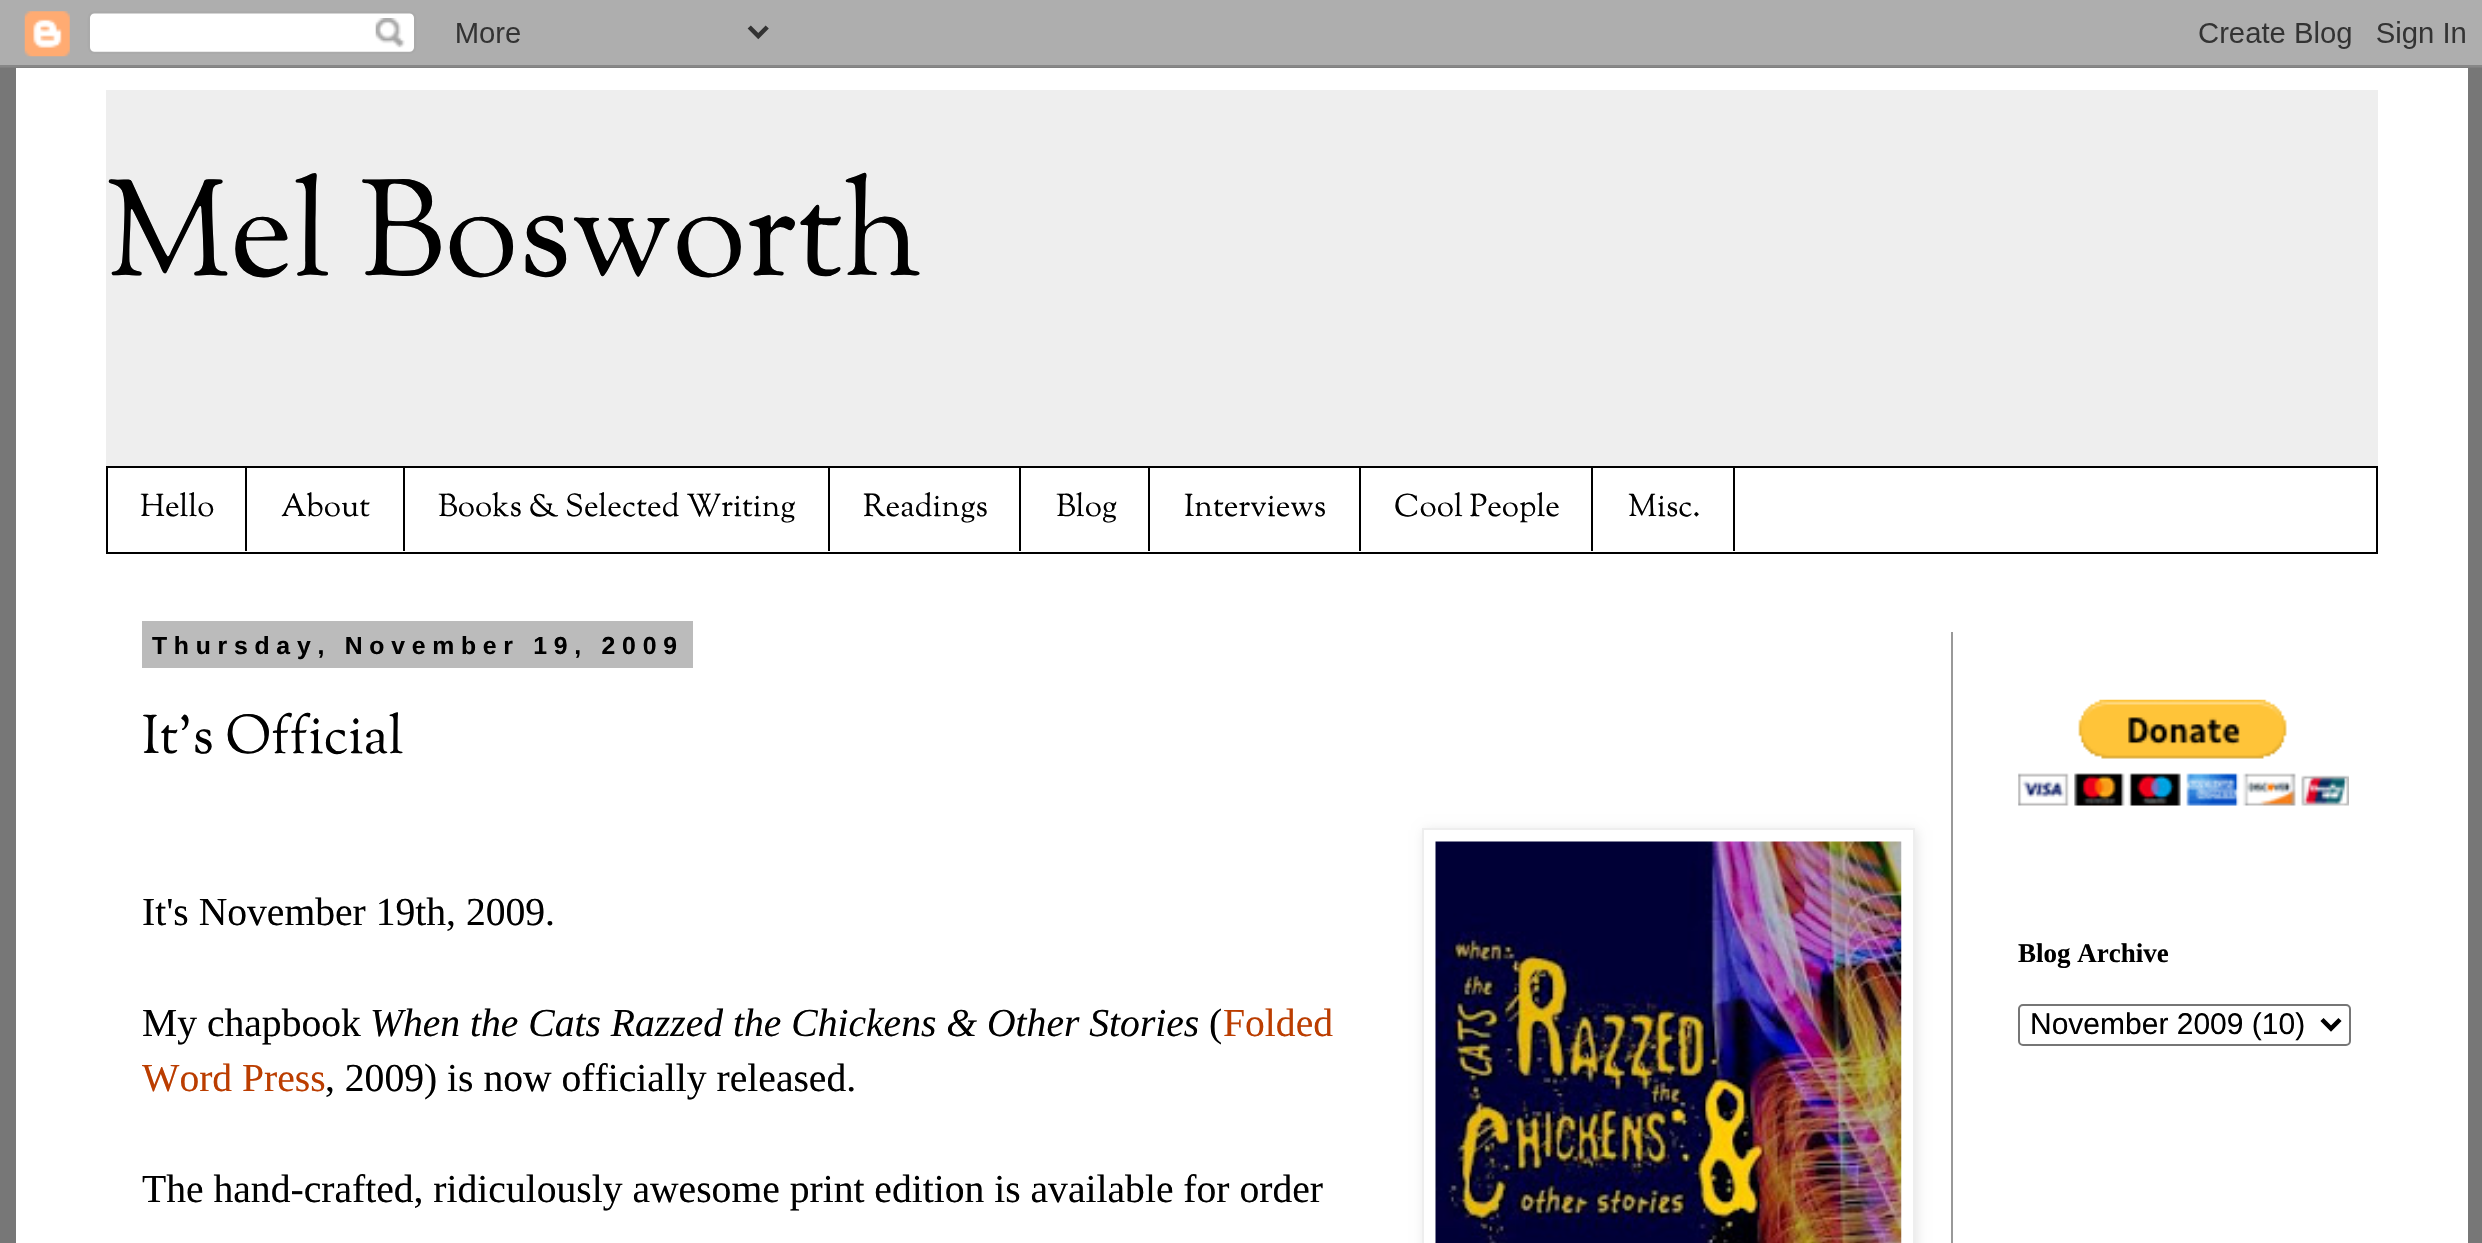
static SkFont makeFont(const char* family, int weight, float size, bool italic = false) {
  SkFontStyle style(weight, SkFontStyle::kNormal_Width,
    italic ? SkFontStyle::kItalic_Slant : SkFontStyle::kUpright_Slant);
  SkFont result(fontMgr->matchFamilyStyle(family, style), size);
  result.setSubpixel(true);
  return result;
}

static void text(SkCanvas* c, const char* s, float x, float y, const SkFont& font, SkColor color) {
  SkPaint ink(SkColor4f::FromColor(color));
  ink.setAntiAlias(true);
  c->drawString(s, x, y, font, ink);
}

static void spacedText(SkCanvas* c, const char* s, float x, float y, const SkFont& font, const SkPaint& ink, float letter, float word) {
  std::vector<SkGlyphID> glyphs(font.countText(s, strlen(s), SkTextEncoding::kUTF8));
  std::vector<float> xs(glyphs.size());
  font.textToGlyphs(s, strlen(s), SkTextEncoding::kUTF8, glyphs);
  font.getXPos(glyphs, xs, x);
  float extra = 0;
  for (size_t i = 0; i < glyphs.size(); i++) {
    xs[i] += extra;
    extra += letter + word * (glyphs[i] == font.unicharToGlyph(' '));
  }
  c->drawTextBlob(SkTextBlob::MakeFromPosHGlyphs(glyphs, xs, y, font), 0, 0, ink);
}

static void box(SkCanvas* c, float l, float t, float r, float b, SkColor color) {
  SkPaint ink(SkColor4f::FromColor(color));
  ink.setAntiAlias(true);
  c->drawRect(SkRect::MakeLTRB(l, t, r, b), ink);
}

static void picture(SkCanvas* c, const char* path, float l, float t, float r, float b) {
  auto image = SkImages::DeferredFromEncodedData(SkData::MakeFromFileName(path));
  c->drawImageRect(image, SkRect::MakeLTRB(l, t, r, b), SkSamplingOptions());
}

void draw(SkCanvas* c) {
  SkPaint paint;
  paint.setAntiAlias(true);
  c->clear(0xff777777);
  picture(c, "img_01.png", 0, 0, 2482, 68);
  box(c, 16, 68, 2468, 1243, 0xffffffff);
  box(c, 106, 90, 2378, 466, 0xffeeeeee);
  SkFont face1 = makeFont("OFL Sorts Mill Goudy TT", 500, 135);
  text(c, "Mel Bosworth", 106, 275, face1, 0xff000000);
  paint.setStyle(SkPaint::kStroke_Style);
  paint.setStrokeWidth(2);
  paint.setColor(0xff000000);
  c->drawRect(SkRect::MakeLTRB(107, 467, 2377, 553), paint);
  box(c, 245, 468, 247, 551, 0xff000000);
  SkFont face2 = makeFont("OFL Sorts Mill Goudy TT", 500, 31.5f);
  text(c, "Hello", 140, 516, face2, 0xff000000);
  box(c, 403, 468, 405, 551, 0xff000000);
  text(c, "About", 281, 516, face2, 0xff000000);
  box(c, 828, 468, 830, 551, 0xff000000);
  text(c, "Books & Selected Writing", 438, 516, face2, 0xff000000);
  box(c, 1019, 468, 1021, 551, 0xff000000);
  text(c, "Readings", 863, 516, face2, 0xff000000);
  box(c, 1148, 468, 1150, 551, 0xff000000);
  text(c, "Blog", 1056, 516, face2, 0xff000000);
  box(c, 1359, 468, 1361, 551, 0xff000000);
  text(c, "Interviews", 1184, 516, face2, 0xff000000);
  box(c, 1591, 468, 1593, 551, 0xff000000);
  text(c, "Cool People", 1394, 516, face2, 0xff000000);
  box(c, 1733, 468, 1735, 551, 0xff000000);
  text(c, "Misc.", 1628, 516, face2, 0xff000000);
  box(c, 1951, 632, 1953, 1243, 0xff999999);
  box(c, 142, 621, 693, 668, 0xffbbbbbb);
  SkFont face3 = makeFont("Liberation Sans", 700, 24.75f);
  paint.setStyle(SkPaint::kFill_Style);
  spacedText(c, "Thursday, November 19, 2009", 152, 654, face3, paint, 6.75f, 0);
  SkFont face4 = makeFont("OFL Sorts Mill Goudy TT", 500, 54);
  text(c, "It's Official", 142, 753, face4, 0xff000000);
  SkFont face5 = makeFont("Liberation Serif", 400, 39.6f);
  text(c, "It's November 19th, 2009.", 142, 925, face5, 0xff000000);
  paint.setColor(0x1a000000);
  paint.setMaskFilter(SkMaskFilter::MakeBlur(kNormal_SkBlurStyle, 5.5f));
  c->drawRect(SkRect::MakeLTRB(1424, 830, 1917, 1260), paint);
  paint.setMaskFilter(nullptr);
  paint.setColor(0xffffffff);
  c->drawRect(SkRect::MakeLTRB(1423, 829, 1914, 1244), paint);
  paint.setStyle(SkPaint::kStroke_Style);
  paint.setColor(0xffeeeeee);
  c->drawRect(SkRect::MakeLTRB(1423, 829, 1914, 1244), paint);
  picture(c, "img_02.png", 1435, 841, 1902, 1243);
  text(c, "My chapbook", 142, 1036, face5, 0xff000000);
  SkFont face6 = makeFont("Liberation Serif", 400, 39.6f, true);
  text(c, "When the Cats Razzed the Chickens & Other Stories", 370, 1036, face6, 0xff000000);
  text(c, "(", 1209, 1036, face5, 0xff000000);
  text(c, "Folded", 1223, 1036, face5, 0xffbb3d00);
  text(c, "Word Press", 142, 1091, face5, 0xffbb3d00);
  text(c, ", 2009) is now officially released.", 325, 1091, face5, 0xff000000);
  text(c, "The hand-crafted, ridiculously awesome print edition is available for order", 142, 1202, face5, 0xff000000);
  picture(c, "img_03.png", 2018, 699, 2349, 806);
  SkFont face7 = makeFont("Liberation Serif", 700, 27);
  text(c, "Blog Archive", 2018, 962, face7, 0xff000000);
  paint.setColor(0xff767676);
  c->drawRoundRect(SkRect::MakeLTRB(2019, 1005, 2350, 1045), 4, 4, paint);
  paint.setStrokeWidth(4.5f);
  paint.setColor(0xff000000);
  c->drawPath(SkPathBuilder().moveTo(2322, 1019.5f).lineTo(2331, 1028.5f).lineTo(2340, 1019.5f).detach(), paint);
  SkFont face8 = makeFont("Liberation Sans", 400, 30);
  text(c, "November 2009 (10)", 2030, 1034, face8, 0xff000000);
}
